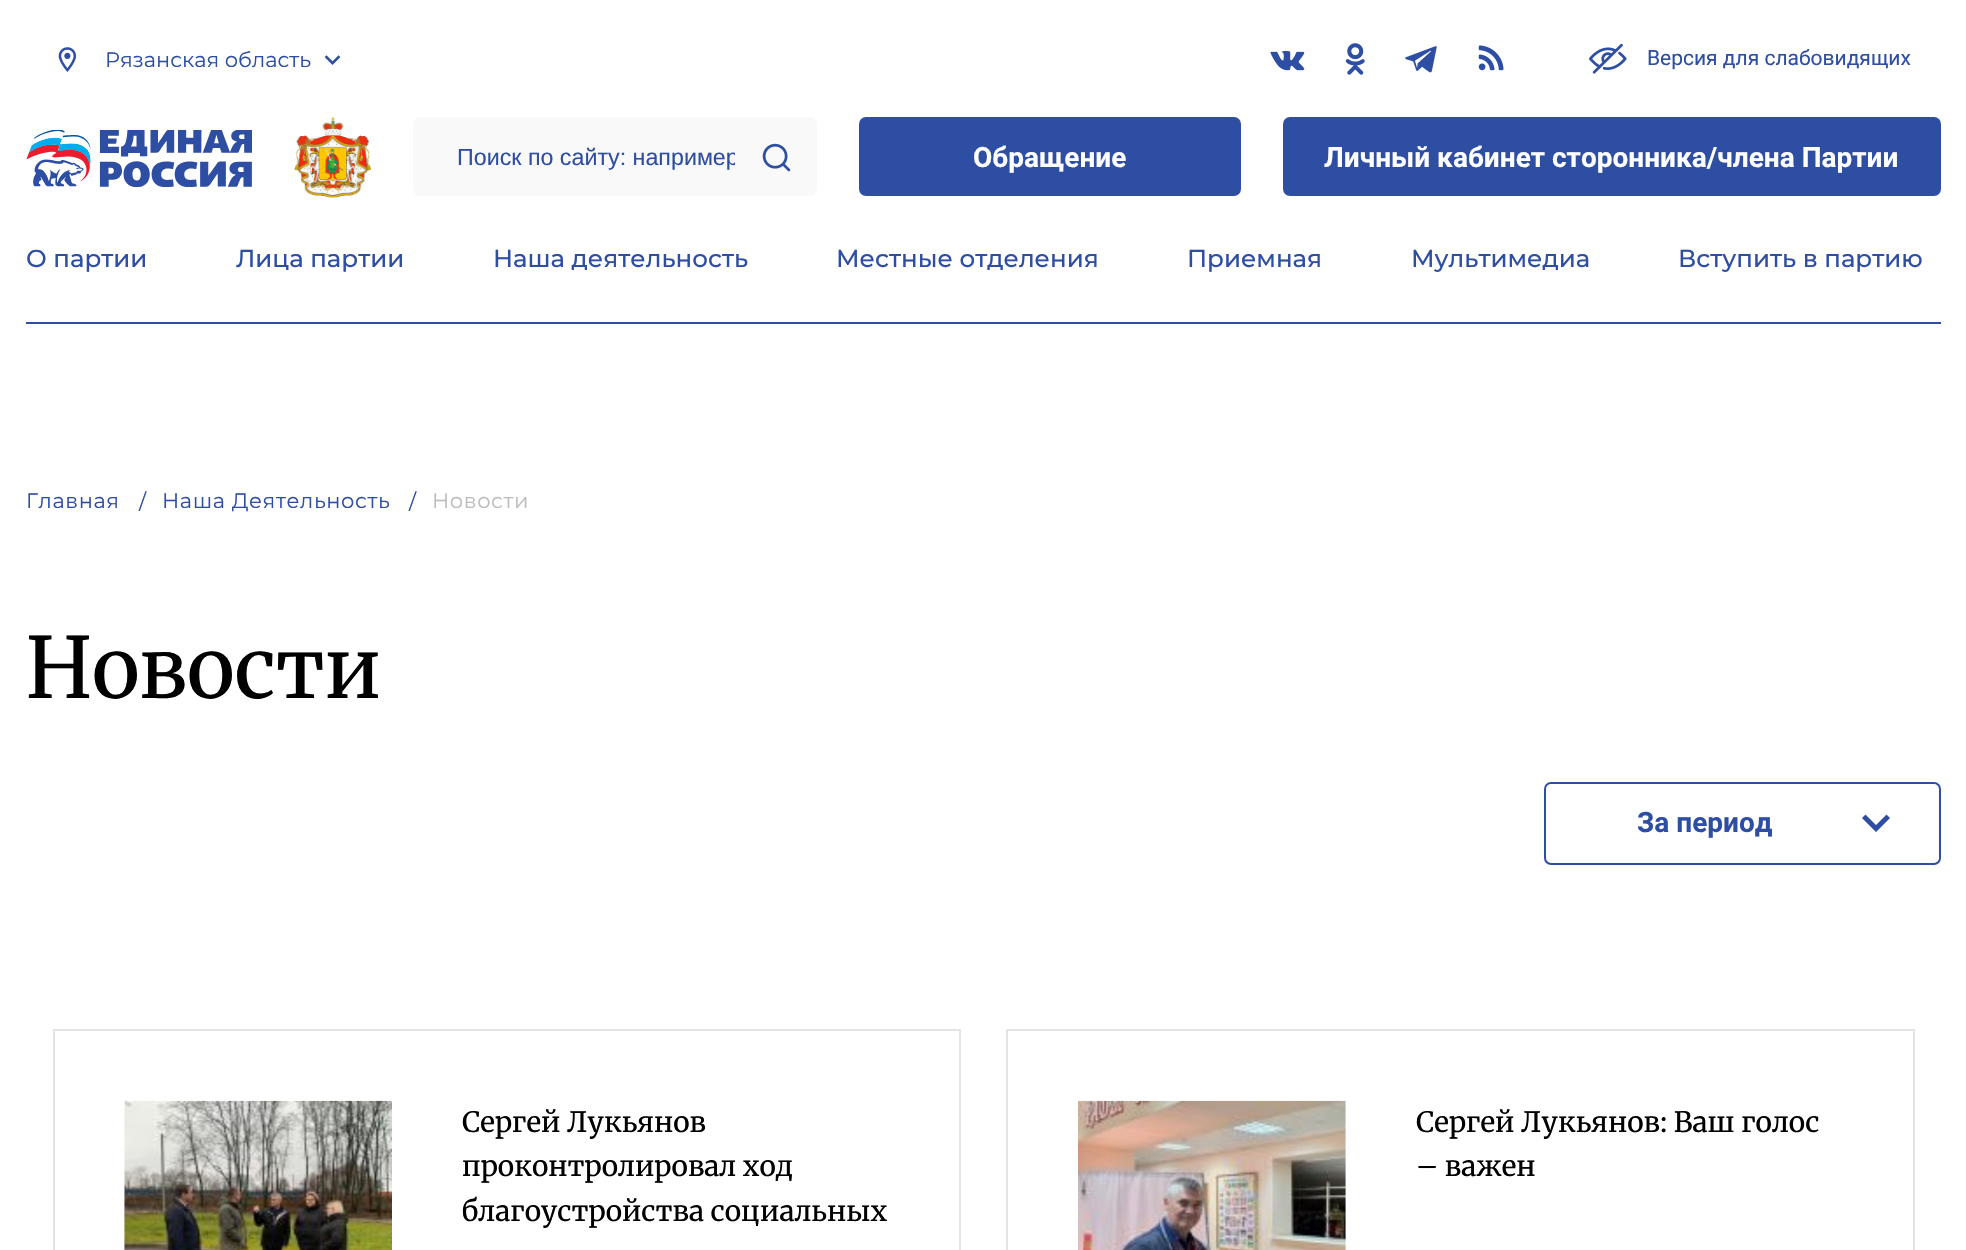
static SkFont makeFont(const char* family, int weight, float size, bool italic = false) {
  SkFontStyle style(weight, SkFontStyle::kNormal_Width,
    italic ? SkFontStyle::kItalic_Slant : SkFontStyle::kUpright_Slant);
  SkFont result(fontMgr->matchFamilyStyle(family, style), size);
  result.setSubpixel(true);
  return result;
}

static void text(SkCanvas* c, const char* s, float x, float y, const SkFont& font, SkColor color) {
  SkPaint ink(SkColor4f::FromColor(color));
  ink.setAntiAlias(true);
  c->drawString(s, x, y, font, ink);
}

static void spacedText(SkCanvas* c, const char* s, float x, float y, const SkFont& font, const SkPaint& ink, float letter, float word) {
  std::vector<SkGlyphID> glyphs(font.countText(s, strlen(s), SkTextEncoding::kUTF8));
  std::vector<float> xs(glyphs.size());
  font.textToGlyphs(s, strlen(s), SkTextEncoding::kUTF8, glyphs);
  font.getXPos(glyphs, xs, x);
  float extra = 0;
  for (size_t i = 0; i < glyphs.size(); i++) {
    xs[i] += extra;
    extra += letter + word * (glyphs[i] == font.unicharToGlyph(' '));
  }
  c->drawTextBlob(SkTextBlob::MakeFromPosHGlyphs(glyphs, xs, y, font), 0, 0, ink);
}

static void box(SkCanvas* c, float l, float t, float r, float b, SkColor color) {
  SkPaint ink(SkColor4f::FromColor(color));
  ink.setAntiAlias(true);
  c->drawRect(SkRect::MakeLTRB(l, t, r, b), ink);
}

static void roundBox(SkCanvas* c, float l, float t, float r, float b, float radius, SkColor color) {
  SkPaint ink(SkColor4f::FromColor(color));
  ink.setAntiAlias(true);
  c->drawRoundRect(SkRect::MakeLTRB(l, t, r, b), radius, radius, ink);
}

static void picture(SkCanvas* c, const char* path, float l, float t, float r, float b) {
  auto image = SkImages::DeferredFromEncodedData(SkData::MakeFromFileName(path));
  c->drawImageRect(image, SkRect::MakeLTRB(l, t, r, b), SkSamplingOptions());
}

void draw(SkCanvas* c) {
  SkPaint paint;
  paint.setAntiAlias(true);
  c->clear(0xffffffff);
  picture(c, "img_01.png", 58, 47, 77, 72);
  SkFont face1 = makeFont("Montserrat", 400, 21);
  text(c, "Рязанская область", 105, 67, face1, 0xff2e4ea4);
  picture(c, "img_02.png", 324, 55, 341, 65);
  picture(c, "img_03.png", 1270, 51, 1305, 71);
  picture(c, "img_04.png", 1345, 43, 1365, 75);
  picture(c, "img_05.png", 1405, 46, 1437, 73);
  picture(c, "img_06.png", 1478, 45, 1504, 71);
  picture(c, "img_07.png", 1589, 43, 1627, 74);
  SkFont face2 = makeFont("Roboto", 400, 21);
  text(c, "Версия для слабовидящих", 1647, 65, face2, 0xff2e4ea4);
  picture(c, "img_08.png", 26, 130, 252, 187);
  picture(c, "img_09.png", 294, 117, 371, 198);
  roundBox(c, 413, 117, 817, 196, 7, 0xfff9f9f9);
  c->save();
  c->clipRect(SkRect::MakeLTRB(457, 144, 735, 170));
  SkFont face3 = makeFont("Liberation Sans", 400, 23.25f);
  text(c, "Поиск по сайту: например", 457, 165, face3, 0xff2e4ea4);
  c->restore();
  picture(c, "img_10.png", 762, 143, 791, 172);
  roundBox(c, 859, 117, 1241, 196, 7, 0xff2e4ea4);
  SkFont face4 = makeFont("Roboto", 700, 28);
  text(c, "Обращение", 973, 167, face4, 0xffffffff);
  roundBox(c, 1283, 117, 1941, 196, 7, 0xff2e4ea4);
  text(c, "Личный кабинет сторонника/члена Партии", 1324, 167, face4, 0xffffffff);
  box(c, 26, 322, 1941, 324, 0xff2e4ea4);
  SkFont face5 = makeFont("Montserrat", 500, 24.5f);
  text(c, "О партии", 26, 267, face5, 0xff2e4ea4);
  text(c, "Лица партии", 236, 267, face5, 0xff2e4ea4);
  text(c, "Наша деятельность", 493, 267, face5, 0xff2e4ea4);
  text(c, "Местные отделения", 836, 267, face5, 0xff2e4ea4);
  text(c, "Приемная", 1187, 267, face5, 0xff2e4ea4);
  text(c, "Мультимедиа", 1411, 267, face5, 0xff2e4ea4);
  text(c, "Вступить в партию", 1678, 267, face5, 0xff2e4ea4);
  paint.setColor(0xff2e4ea4);
  spacedText(c, "Главная", 26, 508, face1, paint, 0.6f, 0);
  spacedText(c, "/", 139, 509, face1, paint, 0.6f, 0);
  spacedText(c, "Наша Деятельность", 162, 508, face1, paint, 0.6f, 0);
  spacedText(c, "/", 409, 509, face1, paint, 0.6f, 0);
  paint.setColor(0xffbdbdbd);
  spacedText(c, "Новости", 432, 508, face1, paint, 0.6f, 0);
  SkFont face6 = makeFont("Merriweather", 400, 84);
  text(c, "Новости", 26, 698, face6, 0xff000000);
  paint.setStyle(SkPaint::kStroke_Style);
  paint.setStrokeWidth(2);
  paint.setColor(0xff2e4ea4);
  c->drawRoundRect(SkRect::MakeLTRB(1545, 783, 1940, 864), 6, 6, paint);
  text(c, "За период", 1637, 832, face4, 0xff2e4ea4);
  paint.setStyle(SkPaint::kFill_Style);
  c->drawPath(SkPathBuilder().moveTo(1886.5f, 814.5f).lineTo(1876, 825).lineTo(1865.5f, 814.5f).lineTo(1862, 818).lineTo(1876, 832).lineTo(1890, 818).close().detach(), paint);
  paint.setStyle(SkPaint::kStroke_Style);
  paint.setColor(0xffe3e3e3);
  c->drawRect(SkRect::MakeLTRB(54, 1030, 960, 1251), paint);
  picture(c, "img_11.png", 124, 1100, 392, 1250);
  SkFont face7 = makeFont("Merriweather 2", 400, 28);
  text(c, "Сергей Лукьянов", 462, 1132, face7, 0xff000000);
  text(c, "проконтролировал ход", 462, 1176, face7, 0xff000000);
  text(c, "благоустройства социальных", 462, 1221, face7, 0xff000000);
  c->drawRect(SkRect::MakeLTRB(1007, 1030, 1914, 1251), paint);
  picture(c, "img_12.png", 1078, 1100, 1346, 1250);
  text(c, "Сергей Лукьянов: Ваш голос", 1416, 1132, face7, 0xff000000);
  text(c, "– важен", 1416, 1176, face7, 0xff000000);
}
